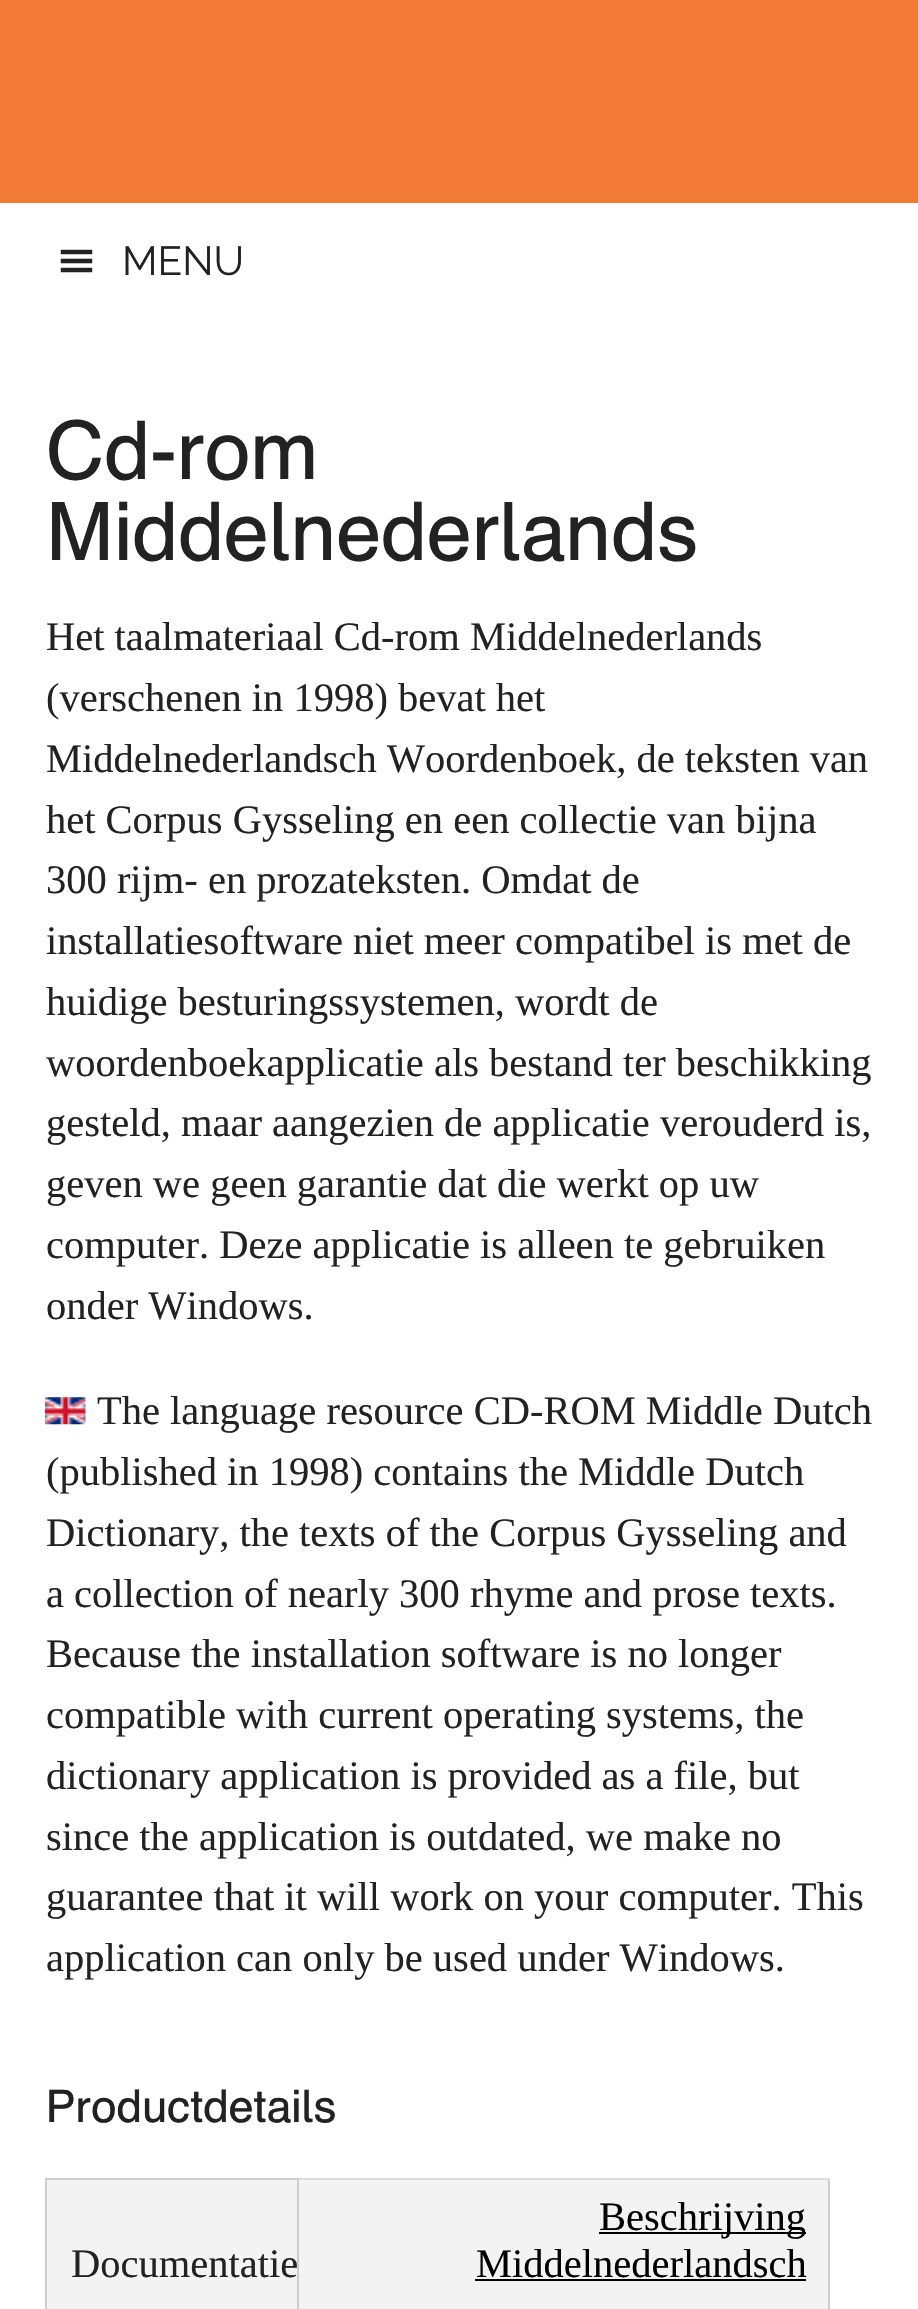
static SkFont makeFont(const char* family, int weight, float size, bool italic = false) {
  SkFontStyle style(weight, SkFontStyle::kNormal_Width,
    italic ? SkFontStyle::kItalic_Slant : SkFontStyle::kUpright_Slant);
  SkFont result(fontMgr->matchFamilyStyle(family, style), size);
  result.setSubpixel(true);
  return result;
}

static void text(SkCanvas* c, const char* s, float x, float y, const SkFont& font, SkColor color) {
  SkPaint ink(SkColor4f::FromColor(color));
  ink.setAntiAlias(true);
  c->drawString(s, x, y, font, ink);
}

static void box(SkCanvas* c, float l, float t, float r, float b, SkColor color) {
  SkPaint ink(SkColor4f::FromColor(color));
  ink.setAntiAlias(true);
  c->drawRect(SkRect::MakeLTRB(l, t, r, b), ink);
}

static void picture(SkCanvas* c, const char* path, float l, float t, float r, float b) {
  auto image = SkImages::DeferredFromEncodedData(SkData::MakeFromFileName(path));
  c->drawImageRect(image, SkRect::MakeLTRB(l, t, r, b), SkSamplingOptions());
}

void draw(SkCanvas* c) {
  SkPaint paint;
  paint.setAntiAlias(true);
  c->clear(0xffffffff);
  box(c, 0, 0, 918, 203, 0xfff07a36);
  picture(c, "img_01.png", 60, 249, 93, 273);
  SkFont face1 = makeFont("Raleway", 400, 40.5f);
  text(c, "MENU", 122, 275, face1, 0xff222222);
  SkFont face2 = makeFont("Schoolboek", 400, 81);
  text(c, "Cd-rom", 46, 479, face2, 0xff222222);
  text(c, "Middelnederlands", 46, 560, face2, 0xff222222);
  SkFont face3 = makeFont("Liberation Serif", 400, 40.5f);
  text(c, "Het taalmateriaal Cd-rom Middelnederlands", 46, 650, face3, 0xff222222);
  text(c, "(verschenen in 1998) bevat het", 46, 711, face3, 0xff222222);
  text(c, "Middelnederlandsch Woordenboek, de teksten van", 46, 772, face3, 0xff222222);
  text(c, "het Corpus Gysseling en een collectie van bijna", 46, 833, face3, 0xff222222);
  text(c, "300 rijm- en prozateksten. Omdat de", 46, 893, face3, 0xff222222);
  text(c, "installatiesoftware niet meer compatibel is met de", 46, 954, face3, 0xff222222);
  text(c, "huidige besturingssystemen, wordt de", 46, 1015, face3, 0xff222222);
  text(c, "woordenboekapplicatie als bestand ter beschikking", 46, 1076, face3, 0xff222222);
  text(c, "gesteld, maar aangezien de applicatie verouderd is,", 46, 1136, face3, 0xff222222);
  text(c, "geven we geen garantie dat die werkt op uw", 46, 1197, face3, 0xff222222);
  text(c, "computer. Deze applicatie is alleen te gebruiken", 46, 1258, face3, 0xff222222);
  text(c, "onder Windows.", 46, 1319, face3, 0xff222222);
  picture(c, "img_02.png", 45, 1397, 86, 1425);
  text(c, "The language resource CD-ROM Middle Dutch", 97, 1424, face3, 0xff222222);
  text(c, "(published in 1998) contains the Middle Dutch", 46, 1485, face3, 0xff222222);
  text(c, "Dictionary, the texts of the Corpus Gysseling and", 46, 1546, face3, 0xff222222);
  text(c, "a collection of nearly 300 rhyme and prose texts.", 46, 1607, face3, 0xff222222);
  text(c, "Because the installation software is no longer", 46, 1667, face3, 0xff222222);
  text(c, "compatible with current operating systems, the", 46, 1728, face3, 0xff222222);
  text(c, "dictionary application is provided as a file, but", 46, 1789, face3, 0xff222222);
  text(c, "since the application is outdated, we make no", 46, 1850, face3, 0xff222222);
  text(c, "guarantee that it will work on your computer. This", 46, 1910, face3, 0xff222222);
  text(c, "application can only be used under Windows.", 46, 1971, face3, 0xff222222);
  SkFont face4 = makeFont("Schoolboek", 400, 45);
  text(c, "Productdetails", 46, 2122, face4, 0xff222222);
  box(c, 828, 2178, 830, 2309, 0xffcccdcc);
  box(c, 45, 2178, 47, 2309, 0xffcccdcc);
  box(c, 47, 2180, 828, 2309, 0xfff3f3f3);
  box(c, 297, 2178, 830, 2180, 0xffdddddd);
  box(c, 45, 2178, 299, 2180, 0xffcccdcc);
  box(c, 297, 2178, 299, 2309, 0xffcccdcc);
  text(c, "Documentatie", 71, 2277, face3, 0xff222222);
  box(c, 599, 2232, 806, 2234, 0xff000000);
  text(c, "Beschrijving", 599, 2230, face3, 0xff000000);
  text(c, "Middelnederlandsch", 476, 2277, face3, 0xff000000);
  box(c, 475, 2279, 806, 2281, 0xff000000);
}
